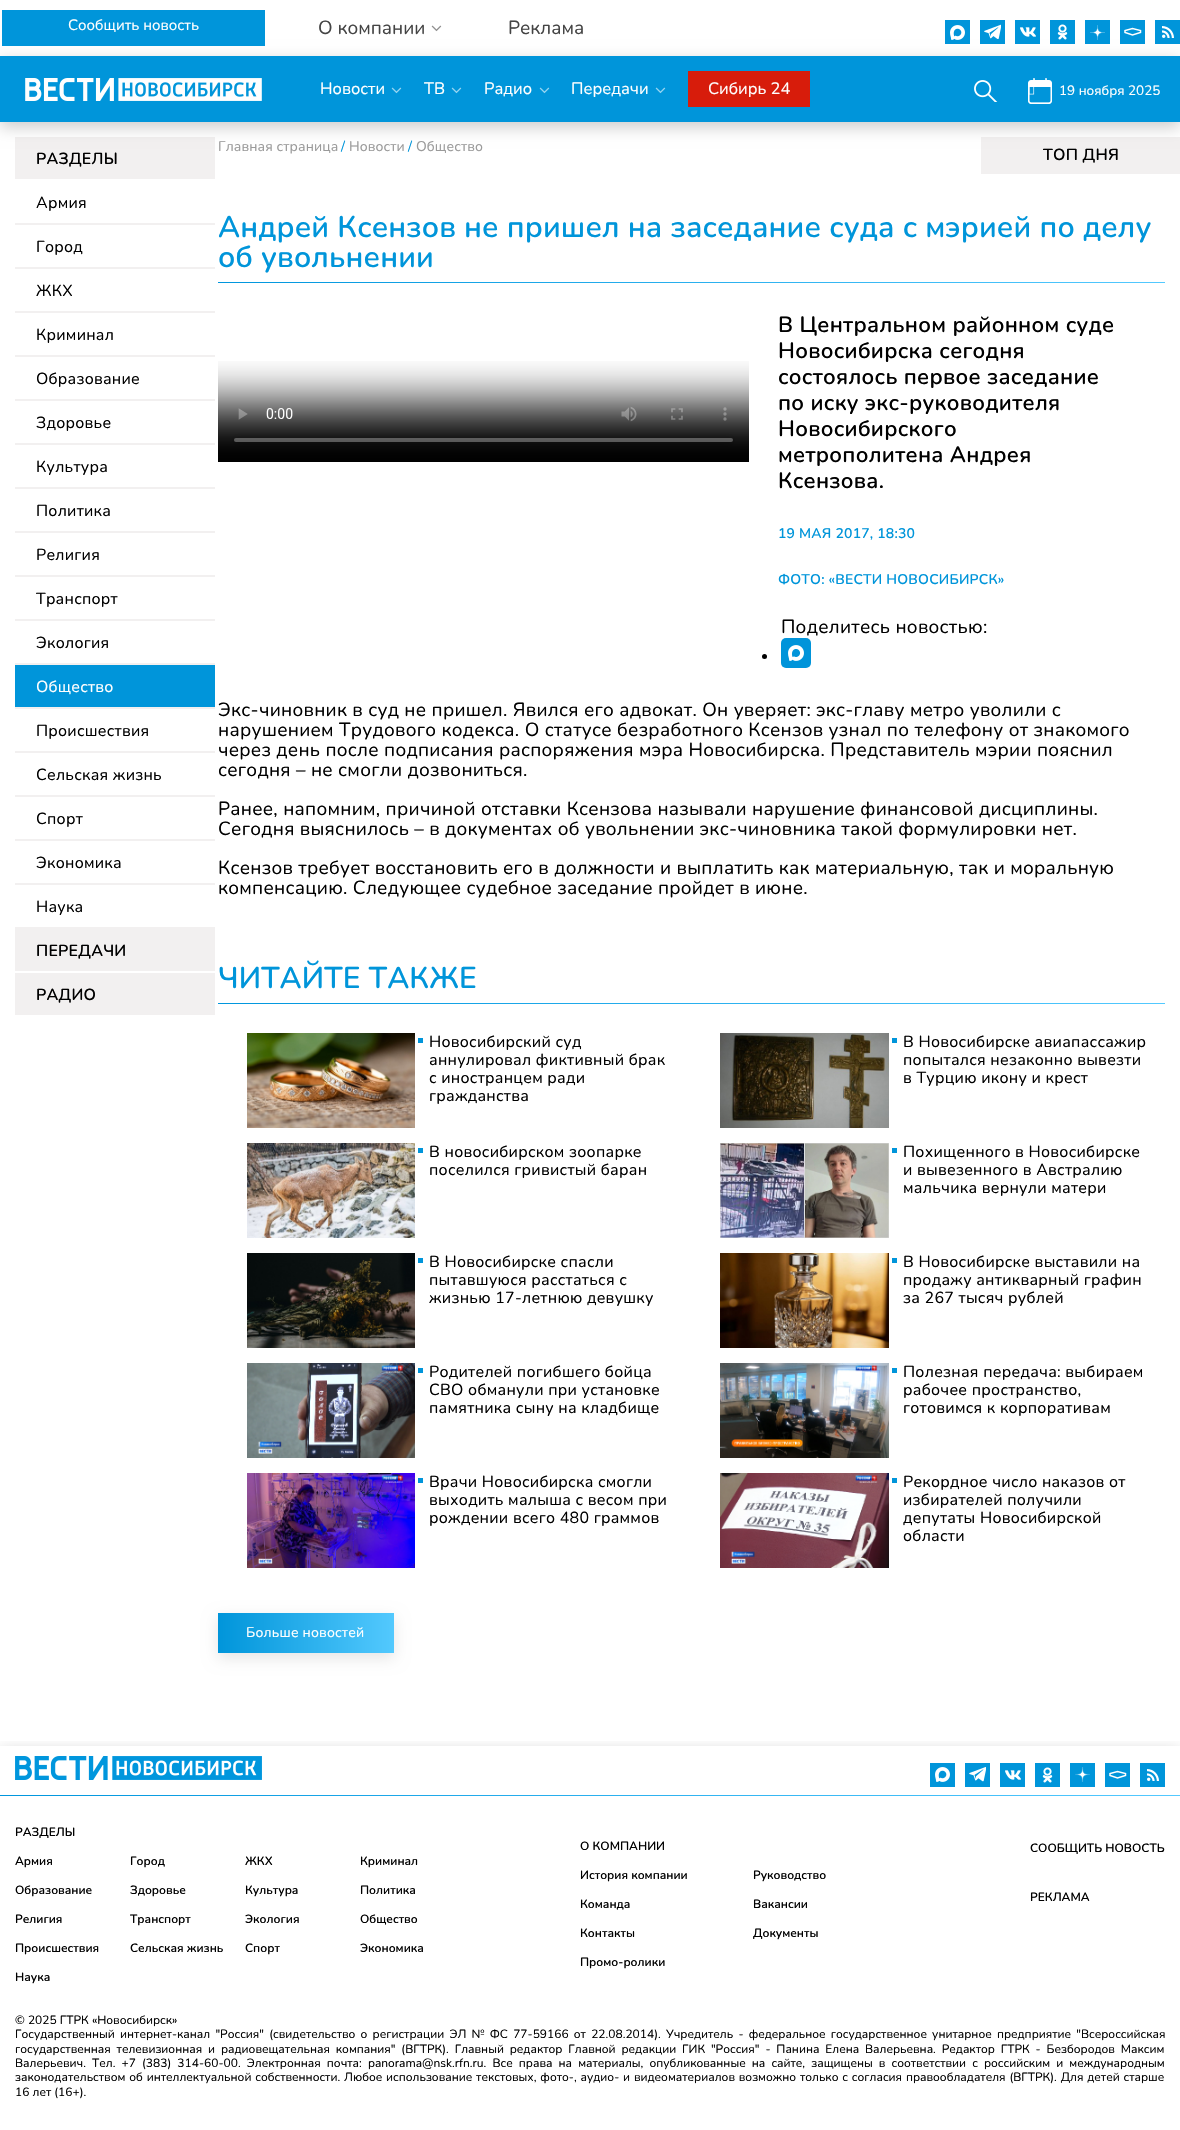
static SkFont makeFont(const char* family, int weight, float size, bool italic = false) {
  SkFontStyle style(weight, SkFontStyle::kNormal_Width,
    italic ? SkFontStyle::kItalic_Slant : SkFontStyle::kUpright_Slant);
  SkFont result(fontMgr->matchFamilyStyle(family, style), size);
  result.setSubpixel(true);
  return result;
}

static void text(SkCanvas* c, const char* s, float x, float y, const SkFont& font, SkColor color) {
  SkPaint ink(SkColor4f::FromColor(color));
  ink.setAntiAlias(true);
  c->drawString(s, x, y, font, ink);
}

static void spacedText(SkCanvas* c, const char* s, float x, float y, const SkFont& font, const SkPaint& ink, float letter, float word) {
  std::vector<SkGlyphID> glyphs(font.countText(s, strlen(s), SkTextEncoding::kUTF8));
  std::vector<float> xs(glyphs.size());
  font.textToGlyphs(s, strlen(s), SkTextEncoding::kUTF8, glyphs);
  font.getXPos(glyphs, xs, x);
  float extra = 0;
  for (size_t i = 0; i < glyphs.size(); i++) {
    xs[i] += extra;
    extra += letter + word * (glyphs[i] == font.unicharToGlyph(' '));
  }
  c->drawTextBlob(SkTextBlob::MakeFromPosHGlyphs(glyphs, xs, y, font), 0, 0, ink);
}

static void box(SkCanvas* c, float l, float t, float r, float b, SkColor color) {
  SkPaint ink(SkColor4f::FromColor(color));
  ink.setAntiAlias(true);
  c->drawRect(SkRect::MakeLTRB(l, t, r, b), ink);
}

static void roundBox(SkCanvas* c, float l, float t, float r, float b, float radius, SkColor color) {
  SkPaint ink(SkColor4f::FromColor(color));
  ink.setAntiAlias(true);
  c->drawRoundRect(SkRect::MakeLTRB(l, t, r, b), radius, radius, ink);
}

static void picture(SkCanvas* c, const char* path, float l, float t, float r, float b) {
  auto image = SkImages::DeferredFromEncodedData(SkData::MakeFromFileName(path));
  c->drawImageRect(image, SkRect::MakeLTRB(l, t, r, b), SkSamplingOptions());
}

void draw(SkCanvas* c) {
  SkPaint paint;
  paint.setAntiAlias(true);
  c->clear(0xffffffff);
  box(c, 15, 137, 215, 179, 0xfff2f0f0);
  box(c, 981, 137, 1180, 174, 0xfff2f0f0);
  paint.setColor(0x33000000);
  paint.setMaskFilter(SkMaskFilter::MakeBlur(kNormal_SkBlurStyle, 7.5f));
  c->drawRect(SkRect::MakeLTRB(0, 61, 1180, 127), paint);
  paint.setMaskFilter(nullptr);
  box(c, 2, 10, 265, 46, 0xff0095da);
  SkFont face1 = makeFont("Nunito", 400, 15);
  text(c, "Сообщить новость", 68, 30, face1, 0xffffffff);
  SkFont face2 = makeFont("Nunito", 400, 19);
  text(c, "О компании", 318, 34, face2, 0xff444444);
  picture(c, "img_01.png", 431, 25, 442, 32);
  text(c, "Реклама", 508, 34, face2, 0xff444444);
  box(c, 945, 20, 970, 44, 0xff0095da);
  picture(c, "img_02.png", 950, 25, 965, 40);
  box(c, 980, 20, 1005, 44, 0xff0095da);
  picture(c, "img_03.png", 984, 24, 1001, 39);
  box(c, 1015, 20, 1040, 44, 0xff0095da);
  picture(c, "img_04.png", 1020, 27, 1036, 37);
  box(c, 1050, 20, 1075, 44, 0xff0095da);
  picture(c, "img_05.png", 1057, 24, 1068, 40);
  box(c, 1085, 20, 1110, 44, 0xff0095da);
  picture(c, "img_06.png", 1090, 25, 1105, 40);
  box(c, 1120, 20, 1145, 44, 0xff0095da);
  paint.setStyle(SkPaint::kStroke_Style);
  paint.setStrokeWidth(1.5f);
  paint.setColor(0xffffffff);
  c->drawPath(SkPathBuilder().moveTo(1125, 32.5f).lineTo(1125, 30.5f).lineTo(1132.5f, 28.5f).lineTo(1140.5f, 30.5f).lineTo(1140.5f, 32.5f).lineTo(1132.5f, 35).close().detach(), paint);
  box(c, 1155, 20, 1180, 44, 0xff0095da);
  picture(c, "img_07.png", 1162, 26, 1174, 38);
  box(c, 0, 56, 1180, 122, 0xff0095da);
  picture(c, "img_08.png", 25, 78, 262, 101);
  SkFont face3 = makeFont("Nunito", 400, 16.5f);
  text(c, "Новости", 320, 94, face3, 0xffffffff);
  picture(c, "img_09.png", 391, 87, 402, 94);
  text(c, "ТВ", 424, 94, face3, 0xffffffff);
  picture(c, "img_09.png", 451, 87, 462, 94);
  text(c, "Радио", 484, 94, face3, 0xffffffff);
  picture(c, "img_09.png", 539, 87, 550, 94);
  text(c, "Передачи", 571, 94, face3, 0xffffffff);
  picture(c, "img_09.png", 655, 87, 666, 94);
  box(c, 688, 71, 810, 107, 0xffd71c0b);
  text(c, "Сибирь 24", 708, 94, face3, 0xffffffff);
  picture(c, "img_10.png", 974, 80, 998, 102);
  picture(c, "img_11.png", 1028, 78, 1052, 104);
  picture(c, "img_12.png", 1029, 87, 1035, 95);
  SkFont face4 = makeFont("Nunito", 400, 13.5f);
  text(c, "19 ноября 2025", 1059, 95, face4, 0xffffffff);
  SkFont face5 = makeFont("Nunito", 400, 14);
  paint.setStyle(SkPaint::kFill_Style);
  paint.setColor(0xff9a9a9a);
  spacedText(c, "Главная страница", 218, 151, face5, paint, 0.1f, 0);
  paint.setColor(0xff0095da);
  spacedText(c, "/", 341, 151, face5, paint, 0.1f, 0);
  paint.setColor(0xff9a9a9a);
  spacedText(c, "Новости", 349, 151, face5, paint, 0.1f, 0);
  paint.setColor(0xff0095da);
  spacedText(c, "/", 408, 151, face5, paint, 0.1f, 0);
  paint.setColor(0xff9a9a9a);
  spacedText(c, "Общество", 416, 151, face5, paint, 0.1f, 0);
  SkFont face6 = makeFont("Nunito", 600, 30);
  paint.setColor(0xff0095da);
  spacedText(c, "Андрей Ксензов не пришел на заседание суда с мэрией по делу", 218, 237, face6, paint, 0.15f, 0);
  spacedText(c, "об увольнении", 218, 267, face6, paint, 0.15f, 0);
  {
    const SkColor colors[] = {0xff53c9ff, 0xff0096dd};
    const float stops[] = {0, 1};
    const SkPoint ends[] = {{1165, 283}, {218, 282}};
    paint.setShader(SkGradientShader::MakeLinear(ends, colors, stops, 2, SkTileMode::kClamp));
    paint.setAlpha(255);
  }
  c->drawRect(SkRect::MakeLTRB(218, 282, 1165, 283), paint);
  picture(c, "img_13.png", 218, 361, 749, 462);
  SkFont face7 = makeFont("Nunito", 600, 22);
  paint.setShader(nullptr);
  paint.setColor(0xff000000);
  spacedText(c, "В Центральном районном суде", 778, 332, face7, paint, 0.3f, 0);
  spacedText(c, "Новосибирска сегодня", 778, 358, face7, paint, 0.3f, 0);
  spacedText(c, "состоялось первое заседание", 778, 384, face7, paint, 0.3f, 0);
  spacedText(c, "по иску экс-руководителя", 778, 410, face7, paint, 0.3f, 0);
  spacedText(c, "Новосибирского", 778, 436, face7, paint, 0.3f, 0);
  spacedText(c, "метрополитена Андрея", 778, 462, face7, paint, 0.3f, 0);
  spacedText(c, "Ксензова.", 778, 488, face7, paint, 0.3f, 0);
  SkFont face8 = makeFont("Nunito", 600, 14);
  paint.setColor(0xff0095da);
  spacedText(c, "19 МАЯ 2017, 18:30", 778, 538, face8, paint, 0.2f, 0);
  spacedText(c, "ФОТО: «ВЕСТИ НОВОСИБИРСК»", 778, 584, face8, paint, 0.2f, 0);
  paint.setColor(0xff000000);
  spacedText(c, "Поделитесь новостью:", 781, 633, face2, paint, 0.27f, 0);
  c->drawCircle(764.5f, 656.5f, 2.5f, paint);
  roundBox(c, 781, 638, 811, 668, 5, 0xff0094da);
  picture(c, "img_14.png", 788, 645, 804, 661);
  spacedText(c, "Экс-чиновник в суд не пришел. Явился его адвокат. Он уверяет: экс-главу метро уволили с", 218, 716, face2, paint, 0.27f, 0);
  spacedText(c, "нарушением Трудового кодекса. О статусе безработного Ксензов узнал по телефону от знакомого", 218, 736, face2, paint, 0.27f, 0);
  spacedText(c, "через день после подписания распоряжения мэра Новосибирска. Представитель мэрии пояснил", 218, 756, face2, paint, 0.27f, 0);
  spacedText(c, "сегодня – не смогли дозвониться.", 218, 776, face2, paint, 0.27f, 0);
  spacedText(c, "Ранее, напомним, причиной отставки Ксензова называли нарушение финансовой дисциплины.", 218, 815, face2, paint, 0.27f, 0);
  spacedText(c, "Сегодня выяснилось – в документах об увольнении экс-чиновника такой формулировки нет.", 218, 835, face2, paint, 0.27f, 0);
  spacedText(c, "Ксензов требует восстановить его в должности и выплатить как материальную, так и моральную", 218, 874, face2, paint, 0.27f, 0);
  spacedText(c, "компенсацию. Следующее судебное заседание пройдет в июне.", 218, 894, face2, paint, 0.27f, 0);
  paint.setColor(0xff0095da);
  spacedText(c, "ЧИТАЙТЕ ТАКЖЕ", 218, 988, face6, paint, 0.15f, 0);
  {
    const SkColor colors[] = {0xff53c9ff, 0xff0096dd};
    const float stops[] = {0, 1};
    const SkPoint ends[] = {{1165, 1004}, {218, 1004}};
    paint.setShader(SkGradientShader::MakeLinear(ends, colors, stops, 2, SkTileMode::kClamp));
    paint.setAlpha(255);
  }
  c->drawRect(SkRect::MakeLTRB(218, 1003, 1165, 1004), paint);
  picture(c, "img_15.png", 247, 1033, 415, 1128);
  box(c, 418, 1038, 423, 1043, 0xff0095da);
  SkFont face9 = makeFont("Nunito", 400, 16);
  paint.setShader(nullptr);
  paint.setColor(0xff000000);
  spacedText(c, "Новосибирский суд", 429, 1047, face9, paint, 0.27f, 0);
  spacedText(c, "аннулировал фиктивный брак", 429, 1065, face9, paint, 0.27f, 0);
  spacedText(c, "с иностранцем ради", 429, 1083, face9, paint, 0.27f, 0);
  spacedText(c, "гражданства", 429, 1101, face9, paint, 0.27f, 0);
  picture(c, "img_16.png", 720, 1033, 889, 1128);
  box(c, 892, 1038, 897, 1043, 0xff0095da);
  spacedText(c, "В Новосибирске авиапассажир", 903, 1047, face9, paint, 0.27f, 0);
  spacedText(c, "попытался незаконно вывезти", 903, 1065, face9, paint, 0.27f, 0);
  spacedText(c, "в Турцию икону и крест", 903, 1083, face9, paint, 0.27f, 0);
  picture(c, "img_17.png", 247, 1143, 415, 1238);
  box(c, 418, 1148, 423, 1153, 0xff0095da);
  spacedText(c, "В новосибирском зоопарке", 429, 1157, face9, paint, 0.27f, 0);
  spacedText(c, "поселился гривистый баран", 429, 1175, face9, paint, 0.27f, 0);
  picture(c, "img_18.png", 720, 1143, 889, 1238);
  box(c, 892, 1148, 897, 1153, 0xff0095da);
  spacedText(c, "Похищенного в Новосибирске", 903, 1157, face9, paint, 0.27f, 0);
  spacedText(c, "и вывезенного в Австралию", 903, 1175, face9, paint, 0.27f, 0);
  spacedText(c, "мальчика вернули матери", 903, 1193, face9, paint, 0.27f, 0);
  picture(c, "img_19.png", 247, 1253, 415, 1348);
  box(c, 418, 1258, 423, 1263, 0xff0095da);
  spacedText(c, "В Новосибирске спасли", 429, 1267, face9, paint, 0.27f, 0);
  spacedText(c, "пытавшуюся расстаться с", 429, 1285, face9, paint, 0.27f, 0);
  spacedText(c, "жизнью 17-летнюю девушку", 429, 1303, face9, paint, 0.27f, 0);
  picture(c, "img_20.png", 720, 1253, 889, 1348);
  box(c, 892, 1258, 897, 1263, 0xff0095da);
  spacedText(c, "В Новосибирске выставили на", 903, 1267, face9, paint, 0.27f, 0);
  spacedText(c, "продажу антикварный графин", 903, 1285, face9, paint, 0.27f, 0);
  spacedText(c, "за 267 тысяч рублей", 903, 1303, face9, paint, 0.27f, 0);
  picture(c, "img_21.png", 247, 1363, 415, 1458);
  box(c, 418, 1368, 423, 1373, 0xff0095da);
  spacedText(c, "Родителей погибшего бойца", 429, 1377, face9, paint, 0.27f, 0);
  spacedText(c, "СВО обманули при установке", 429, 1395, face9, paint, 0.27f, 0);
  spacedText(c, "памятника сыну на кладбище", 429, 1413, face9, paint, 0.27f, 0);
  picture(c, "img_22.png", 720, 1363, 889, 1458);
  box(c, 892, 1368, 897, 1373, 0xff0095da);
  spacedText(c, "Полезная передача: выбираем", 903, 1377, face9, paint, 0.27f, 0);
  spacedText(c, "рабочее пространство,", 903, 1395, face9, paint, 0.27f, 0);
  spacedText(c, "готовимся к корпоративам", 903, 1413, face9, paint, 0.27f, 0);
  picture(c, "img_23.png", 247, 1473, 415, 1568);
  box(c, 418, 1478, 423, 1483, 0xff0095da);
  spacedText(c, "Врачи Новосибирска смогли", 429, 1487, face9, paint, 0.27f, 0);
  spacedText(c, "выходить малыша с весом при", 429, 1505, face9, paint, 0.27f, 0);
  spacedText(c, "рождении всего 480 граммов", 429, 1523, face9, paint, 0.27f, 0);
  picture(c, "img_24.png", 720, 1473, 889, 1568);
  box(c, 892, 1478, 897, 1483, 0xff0095da);
  spacedText(c, "Рекордное число наказов от", 903, 1487, face9, paint, 0.27f, 0);
  spacedText(c, "избирателей получили", 903, 1505, face9, paint, 0.27f, 0);
  spacedText(c, "депутаты Новосибирской", 903, 1523, face9, paint, 0.27f, 0);
  spacedText(c, "области", 903, 1541, face9, paint, 0.27f, 0);
  paint.setColor(0x1a000000);
  paint.setMaskFilter(SkMaskFilter::MakeBlur(kNormal_SkBlurStyle, 7.5f));
  c->drawRect(SkRect::MakeLTRB(218, 1618, 394, 1658), paint);
  paint.setMaskFilter(nullptr);
  {
    const SkColor colors[] = {0xff0095da, 0xff53c9fe};
    const float stops[] = {0, 1};
    const SkPoint ends[] = {{218, 1633}, {394, 1633}};
    paint.setShader(SkGradientShader::MakeLinear(ends, colors, stops, 2, SkTileMode::kClamp));
    paint.setAlpha(255);
  }
  c->drawRect(SkRect::MakeLTRB(218, 1613, 394, 1653), paint);
  paint.setShader(nullptr);
  paint.setColor(0xffffffff);
  spacedText(c, "Больше новостей", 246, 1637, face5, paint, 0.2f, 0);
  SkFont face10 = makeFont("Nunito", 600, 16);
  paint.setColor(0xff000000);
  spacedText(c, "РАЗДЕЛЫ", 36, 164, face10, paint, 0.25f, 0);
  box(c, 15, 223, 215, 225, 0xfff2f0f0);
  spacedText(c, "Армия", 36, 208, face9, paint, 0.25f, 0);
  box(c, 15, 267, 215, 269, 0xfff2f0f0);
  spacedText(c, "Город", 36, 252, face9, paint, 0.25f, 0);
  box(c, 15, 311, 215, 313, 0xfff2f0f0);
  spacedText(c, "ЖКХ", 36, 296, face9, paint, 0.25f, 0);
  box(c, 15, 355, 215, 357, 0xfff2f0f0);
  spacedText(c, "Криминал", 36, 340, face9, paint, 0.25f, 0);
  box(c, 15, 399, 215, 401, 0xfff2f0f0);
  spacedText(c, "Образование", 36, 384, face9, paint, 0.25f, 0);
  box(c, 15, 443, 215, 445, 0xfff2f0f0);
  spacedText(c, "Здоровье", 36, 428, face9, paint, 0.25f, 0);
  box(c, 15, 487, 215, 489, 0xfff2f0f0);
  spacedText(c, "Культура", 36, 472, face9, paint, 0.25f, 0);
  box(c, 15, 531, 215, 533, 0xfff2f0f0);
  spacedText(c, "Политика", 36, 516, face9, paint, 0.25f, 0);
  box(c, 15, 575, 215, 577, 0xfff2f0f0);
  spacedText(c, "Религия", 36, 560, face9, paint, 0.25f, 0);
  box(c, 15, 619, 215, 621, 0xfff2f0f0);
  spacedText(c, "Транспорт", 36, 604, face9, paint, 0.25f, 0);
  box(c, 15, 663, 215, 665, 0xfff2f0f0);
  spacedText(c, "Экология", 36, 648, face9, paint, 0.25f, 0);
  box(c, 15, 665, 215, 707, 0xff0095da);
  box(c, 15, 707, 215, 709, 0xfff2f0f0);
  paint.setColor(0xffffffff);
  spacedText(c, "Общество", 36, 692, face9, paint, 0.25f, 0);
  box(c, 15, 751, 215, 753, 0xfff2f0f0);
  paint.setColor(0xff000000);
  spacedText(c, "Происшествия", 36, 736, face9, paint, 0.25f, 0);
  box(c, 15, 795, 215, 797, 0xfff2f0f0);
  spacedText(c, "Сельская жизнь", 36, 780, face9, paint, 0.25f, 0);
  box(c, 15, 839, 215, 841, 0xfff2f0f0);
  spacedText(c, "Спорт", 36, 824, face9, paint, 0.25f, 0);
  box(c, 15, 883, 215, 885, 0xfff2f0f0);
  spacedText(c, "Экономика", 36, 868, face9, paint, 0.25f, 0);
  spacedText(c, "Наука", 36, 912, face9, paint, 0.25f, 0);
  box(c, 15, 927, 215, 971, 0xfff2f0f0);
  spacedText(c, "ПЕРЕДАЧИ", 36, 956, face10, paint, 0.25f, 0);
  box(c, 15, 973, 215, 1015, 0xfff2f0f0);
  spacedText(c, "РАДИО", 36, 1000, face10, paint, 0.25f, 0);
  spacedText(c, "ТОП ДНЯ", 1043, 160, face10, paint, 0.25f, 0);
  c->save();
  c->clipRect(SkRect::MakeLTRB(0, 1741, 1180, 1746));
  paint.setColor(0x33000000);
  paint.setMaskFilter(SkMaskFilter::MakeBlur(kNormal_SkBlurStyle, 7.5f));
  c->drawRect(SkRect::MakeLTRB(0, 1751, 1180, 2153), paint);
  paint.setMaskFilter(nullptr);
  c->restore();
  picture(c, "img_25.png", 15, 1756, 262, 1780);
  box(c, 930, 1763, 955, 1787, 0xff0095da);
  picture(c, "img_02.png", 935, 1767, 950, 1782);
  box(c, 965, 1763, 990, 1787, 0xff0095da);
  picture(c, "img_26.png", 969, 1767, 986, 1782);
  box(c, 1000, 1763, 1025, 1787, 0xff0095da);
  picture(c, "img_04.png", 1005, 1770, 1021, 1780);
  box(c, 1035, 1763, 1060, 1787, 0xff0095da);
  picture(c, "img_05.png", 1042, 1767, 1053, 1783);
  box(c, 1070, 1763, 1095, 1787, 0xff0095da);
  picture(c, "img_27.png", 1075, 1767, 1090, 1782);
  box(c, 1105, 1763, 1130, 1787, 0xff0095da);
  paint.setStyle(SkPaint::kStroke_Style);
  paint.setColor(0xffffffff);
  c->drawPath(SkPathBuilder().moveTo(1110, 1775.5f).lineTo(1110, 1773.5f).lineTo(1117.5f, 1771.5f).lineTo(1125.5f, 1773.5f).lineTo(1125.5f, 1775.5f).lineTo(1117.5f, 1778).close().detach(), paint);
  box(c, 1140, 1763, 1165, 1787, 0xff0095da);
  picture(c, "img_07.png", 1147, 1769, 1159, 1781);
  paint.setStyle(SkPaint::kFill_Style);
  {
    const SkColor colors[] = {0xff53c9ff, 0xff0096dd};
    const float stops[] = {0, 1};
    const SkPoint ends[] = {{1180, 1796}, {0, 1796}};
    paint.setShader(SkGradientShader::MakeLinear(ends, colors, stops, 2, SkTileMode::kClamp));
    paint.setAlpha(255);
  }
  c->drawRect(SkRect::MakeLTRB(0, 1795, 1180, 1796), paint);
  SkFont face11 = makeFont("Nunito", 600, 12);
  text(c, "РАЗДЕЛЫ", 15, 1836, face11, 0xff000000);
  text(c, "Армия", 15, 1865, face11, 0xff000000);
  text(c, "Город", 130, 1865, face11, 0xff000000);
  text(c, "ЖКХ", 245, 1865, face11, 0xff000000);
  text(c, "Криминал", 360, 1865, face11, 0xff000000);
  text(c, "Образование", 15, 1894, face11, 0xff000000);
  text(c, "Здоровье", 130, 1894, face11, 0xff000000);
  text(c, "Культура", 245, 1894, face11, 0xff000000);
  text(c, "Политика", 360, 1894, face11, 0xff000000);
  text(c, "Религия", 15, 1923, face11, 0xff000000);
  text(c, "Транспорт", 130, 1923, face11, 0xff000000);
  text(c, "Экология", 245, 1923, face11, 0xff000000);
  text(c, "Общество", 360, 1923, face11, 0xff000000);
  text(c, "Происшествия", 15, 1952, face11, 0xff000000);
  text(c, "Сельская жизнь", 130, 1952, face11, 0xff000000);
  text(c, "Спорт", 245, 1952, face11, 0xff000000);
  text(c, "Экономика", 360, 1952, face11, 0xff000000);
  text(c, "Наука", 15, 1981, face11, 0xff000000);
  text(c, "О КОМПАНИИ", 580, 1850, face11, 0xff000000);
  text(c, "История компании", 580, 1879, face11, 0xff000000);
  text(c, "Руководство", 753, 1879, face11, 0xff000000);
  text(c, "Команда", 580, 1908, face11, 0xff000000);
  text(c, "Вакансии", 753, 1908, face11, 0xff000000);
  text(c, "Контакты", 580, 1937, face11, 0xff000000);
  text(c, "Документы", 753, 1937, face11, 0xff000000);
  text(c, "Промо-ролики", 580, 1966, face11, 0xff000000);
  text(c, "СООБЩИТЬ НОВОСТЬ", 1030, 1852, face11, 0xff000000);
  text(c, "РЕКЛАМА", 1030, 1901, face11, 0xff000000);
  SkFont face12 = makeFont("Nunito", 400, 12);
  text(c, "© 2025 ГТРК «Новосибирск»", 15, 2024, face12, 0xff000000);
  paint.setShader(nullptr);
  paint.setColor(0xff000000);
  spacedText(c, "Государственный интернет-канал \"Россия\" (свидетельство о регистрации ЭЛ № ФС 77-59166 от 22.08.2014). Учредитель - федеральное государственное унитарное предприятие \"Всероссийская", 15, 2038, face12, paint, 0, 2.1f);
  spacedText(c, "государственная телевизионная и радиовещательная компания\" (ВГТРК). Главный редактор Главной редакции ГИК \"Россия\" - Панина Елена Валерьевна. Редактор ГТРК - Безбородов Максим", 15, 2053, face12, paint, 0, 2.75f);
  spacedText(c, "Валерьевич. Тел. +7 (383) 314-60-00. Электронная почта: panorama@nsk.rfn.ru. Все права на материалы, опубликованные на сайте, защищены в соответствии с российским и международным", 15, 2067, face12, paint, 0, 3);
  spacedText(c, "законодательством об интеллектуальной собственности. Любое использование текстовых, фото-, аудио- и видеоматериалов возможно только с согласия правообладателя (ВГТРК). Для детей старше", 15, 2081, face12, paint, 0, 0.75f);
  text(c, "16 лет (16+).", 15, 2096, face12, 0xff000000);
}
